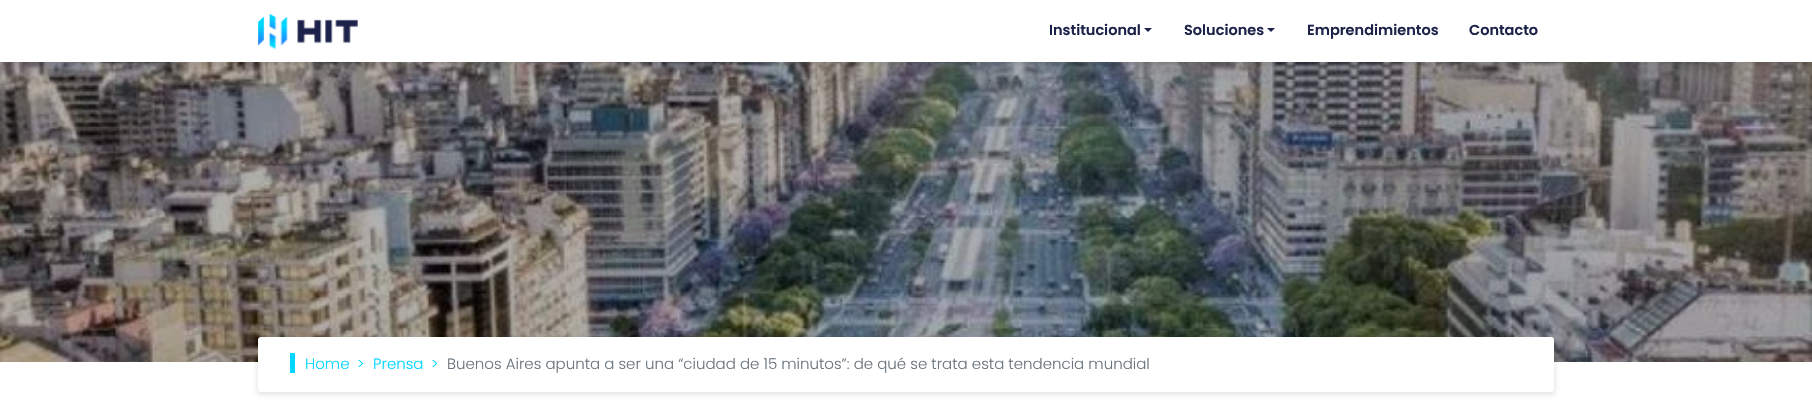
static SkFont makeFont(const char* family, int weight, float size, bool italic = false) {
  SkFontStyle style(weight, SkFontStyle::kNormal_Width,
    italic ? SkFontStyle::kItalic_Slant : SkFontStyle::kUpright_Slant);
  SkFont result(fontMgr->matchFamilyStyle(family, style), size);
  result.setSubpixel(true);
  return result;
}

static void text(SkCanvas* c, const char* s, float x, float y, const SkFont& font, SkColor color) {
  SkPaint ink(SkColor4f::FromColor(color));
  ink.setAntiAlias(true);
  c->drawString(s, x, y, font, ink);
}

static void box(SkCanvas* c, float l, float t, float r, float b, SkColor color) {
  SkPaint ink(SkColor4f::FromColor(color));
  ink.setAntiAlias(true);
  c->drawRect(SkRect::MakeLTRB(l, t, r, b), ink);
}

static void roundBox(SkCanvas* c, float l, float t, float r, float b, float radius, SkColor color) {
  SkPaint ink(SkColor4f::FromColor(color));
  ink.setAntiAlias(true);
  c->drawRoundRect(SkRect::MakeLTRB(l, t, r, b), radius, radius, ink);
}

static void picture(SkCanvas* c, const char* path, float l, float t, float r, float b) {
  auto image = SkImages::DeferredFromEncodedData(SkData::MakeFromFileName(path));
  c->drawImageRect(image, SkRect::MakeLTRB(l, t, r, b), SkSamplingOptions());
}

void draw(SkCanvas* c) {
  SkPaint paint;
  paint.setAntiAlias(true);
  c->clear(0xffffffff);
  picture(c, "img_02.png", 0, 62, 1812, 362);
  c->save();
  c->clipRect(SkRect::MakeLTRB(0, 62, 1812, 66));
  paint.setColor(0x1a000000);
  paint.setMaskFilter(SkMaskFilter::MakeBlur(kNormal_SkBlurStyle, 2.5f));
  c->drawRect(SkRect::MakeLTRB(-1, 0, 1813, 64), paint);
  paint.setMaskFilter(nullptr);
  c->restore();
  picture(c, "img_01.png", 258, 14, 358, 50);
  SkFont face1 = makeFont("Poppins", 600, 14.5f);
  text(c, "Institucional", 1049, 35, face1, 0xff1c2249);
  paint.setColor(0xff1c2249);
  c->drawPath(SkPathBuilder().moveTo(1144, 28).lineTo(1152, 28).lineTo(1148, 32).close().detach(), paint);
  text(c, "Soluciones", 1184, 35, face1, 0xff1c2249);
  c->drawPath(SkPathBuilder().moveTo(1267, 28).lineTo(1275, 28).lineTo(1271, 32).close().detach(), paint);
  text(c, "Emprendimientos", 1307, 35, face1, 0xff1c2249);
  text(c, "Contacto", 1469, 35, face1, 0xff1c2249);
  paint.setColor(0x1a000000);
  paint.setMaskFilter(SkMaskFilter::MakeBlur(kNormal_SkBlurStyle, 2.5f));
  c->drawRoundRect(SkRect::MakeLTRB(257, 338, 1555, 395), 4, 4, paint);
  paint.setMaskFilter(nullptr);
  roundBox(c, 258, 337, 1554, 392, 3, 0xffffffff);
  box(c, 290, 353, 295, 373, 0xff00d6ff);
  SkFont face2 = makeFont("Poppins", 300, 15);
  text(c, "Home", 305, 369, face2, 0xff00d6ff);
  text(c, ">", 357, 369, face2, 0xff00d6ff);
  text(c, "Prensa", 373, 369, face2, 0xff00d6ff);
  text(c, ">", 431, 369, face2, 0xff00d6ff);
  text(c, "Buenos Aires apunta a ser una “ciudad de 15 minutos”: de qué se trata esta tendencia mundial", 447, 369, face2, 0xff6c757d);
}
